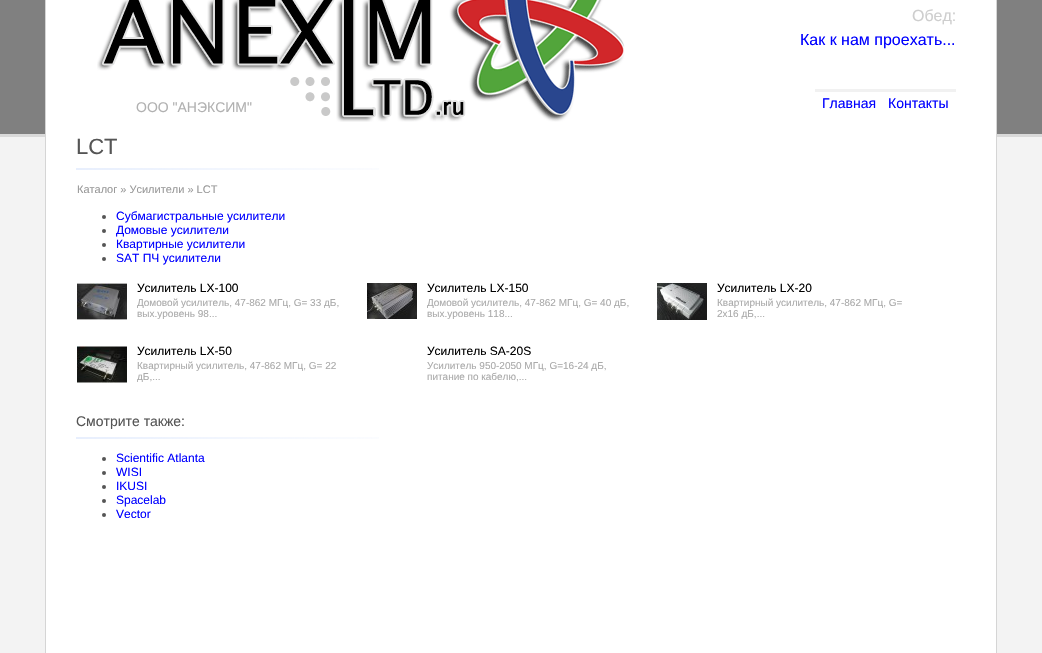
static SkFont makeFont(const char* family, int weight, float size, bool italic = false) {
  SkFontStyle style(weight, SkFontStyle::kNormal_Width,
    italic ? SkFontStyle::kItalic_Slant : SkFontStyle::kUpright_Slant);
  SkFont result(fontMgr->matchFamilyStyle(family, style), size);
  result.setSubpixel(true);
  return result;
}

static void text(SkCanvas* c, const char* s, float x, float y, const SkFont& font, SkColor color) {
  SkPaint ink(SkColor4f::FromColor(color));
  ink.setAntiAlias(true);
  c->drawString(s, x, y, font, ink);
}

static void box(SkCanvas* c, float l, float t, float r, float b, SkColor color) {
  SkPaint ink(SkColor4f::FromColor(color));
  ink.setAntiAlias(true);
  c->drawRect(SkRect::MakeLTRB(l, t, r, b), ink);
}

static void picture(SkCanvas* c, const char* path, float l, float t, float r, float b) {
  auto image = SkImages::DeferredFromEncodedData(SkData::MakeFromFileName(path));
  c->drawImageRect(image, SkRect::MakeLTRB(l, t, r, b), SkSamplingOptions());
}

void draw(SkCanvas* c) {
  SkPaint paint;
  paint.setAntiAlias(true);
  c->clear(0xfff3f3f3);
  picture(c, "img_01.png", 0, 0, 1042, 137);
  box(c, 46, 0, 996, 653, 0xffffffff);
  box(c, 996, 0, 997, 653, 0xffd5d5d5);
  box(c, 45, 0, 46, 653, 0xffd5d5d5);
  picture(c, "img_02.png", 97, 0, 625, 122);
  SkFont face1 = makeFont("Liberation Sans", 400, 16);
  text(c, "Обед:", 912, 21, face1, 0xffcecece);
  text(c, "Как к нам проехать...", 800, 45, face1, 0xff0000ff);
  SkFont face2 = makeFont("Liberation Sans", 400, 14);
  text(c, "ООО \"АНЭКСИМ\"", 136, 112, face2, 0xffb1b1b1);
  box(c, 815, 89, 956, 92, 0xfff1f1f1);
  text(c, "Главная", 822, 108, face2, 0xff0000ff);
  text(c, "Контакты", 888, 108, face2, 0xff0000ff);
  picture(c, "img_03.png", 76, 168, 379, 170);
  SkFont face3 = makeFont("Liberation Sans", 400, 22);
  text(c, "LCT", 76, 154, face3, 0xff555555);
  SkFont face4 = makeFont("Liberation Sans", 400, 11);
  text(c, "Каталог » Усилители » LCT", 77, 193, face4, 0xff999999);
  paint.setColor(0xff555555);
  c->drawCircle(104, 217, 2, paint);
  SkFont face5 = makeFont("Liberation Sans", 400, 12);
  text(c, "Субмагистральные усилители", 116, 220, face5, 0xff0000ff);
  c->drawCircle(104, 231, 2, paint);
  text(c, "Домовые усилители", 116, 234, face5, 0xff0000ff);
  c->drawCircle(104, 245, 2, paint);
  text(c, "Квартирные усилители", 116, 248, face5, 0xff0000ff);
  c->drawCircle(104, 259, 2, paint);
  text(c, "SAT ПЧ усилители", 116, 262, face5, 0xff0000ff);
  picture(c, "img_04.png", 77, 283, 127, 320);
  text(c, "Усилитель LX-100", 137, 292, face5, 0xff000000);
  SkFont face6 = makeFont("Liberation Sans", 400, 10);
  text(c, "Домовой усилитель, 47-862 МГц, G= 33 дБ,", 137, 306, face6, 0xffaaaaaa);
  text(c, "вых.уровень 98...", 137, 317, face6, 0xffaaaaaa);
  picture(c, "img_05.png", 367, 283, 417, 319);
  text(c, "Усилитель LX-150", 427, 292, face5, 0xff000000);
  text(c, "Домовой усилитель, 47-862 МГц, G= 40 дБ,", 427, 306, face6, 0xffaaaaaa);
  text(c, "вых.уровень 118...", 427, 317, face6, 0xffaaaaaa);
  picture(c, "img_06.png", 657, 283, 707, 320);
  text(c, "Усилитель LX-20", 717, 292, face5, 0xff000000);
  text(c, "Квартирный усилитель, 47-862 МГц, G=", 717, 306, face6, 0xffaaaaaa);
  text(c, "2x16 дБ,...", 717, 317, face6, 0xffaaaaaa);
  picture(c, "img_07.png", 77, 346, 127, 383);
  text(c, "Усилитель LX-50", 137, 355, face5, 0xff000000);
  text(c, "Квартирный усилитель, 47-862 МГц, G= 22", 137, 369, face6, 0xffaaaaaa);
  text(c, "дБ,...", 137, 380, face6, 0xffaaaaaa);
  text(c, "Усилитель SA-20S", 427, 355, face5, 0xff000000);
  text(c, "Усилитель 950-2050 МГц, G=16-24 дБ,", 427, 369, face6, 0xffaaaaaa);
  text(c, "питание по кабелю,...", 427, 380, face6, 0xffaaaaaa);
  picture(c, "img_03.png", 76, 437, 379, 439);
  text(c, "Смотрите также:", 76, 426, face2, 0xff555555);
  c->drawCircle(104, 459, 2, paint);
  text(c, "Scientific Atlanta", 116, 462, face5, 0xff0000ff);
  c->drawCircle(104, 473, 2, paint);
  text(c, "WISI", 116, 476, face5, 0xff0000ff);
  c->drawCircle(104, 487, 2, paint);
  text(c, "IKUSI", 116, 490, face5, 0xff0000ff);
  c->drawCircle(104, 501, 2, paint);
  text(c, "Spacelab", 116, 504, face5, 0xff0000ff);
  c->drawCircle(104, 515, 2, paint);
  text(c, "Vector", 116, 518, face5, 0xff0000ff);
}
